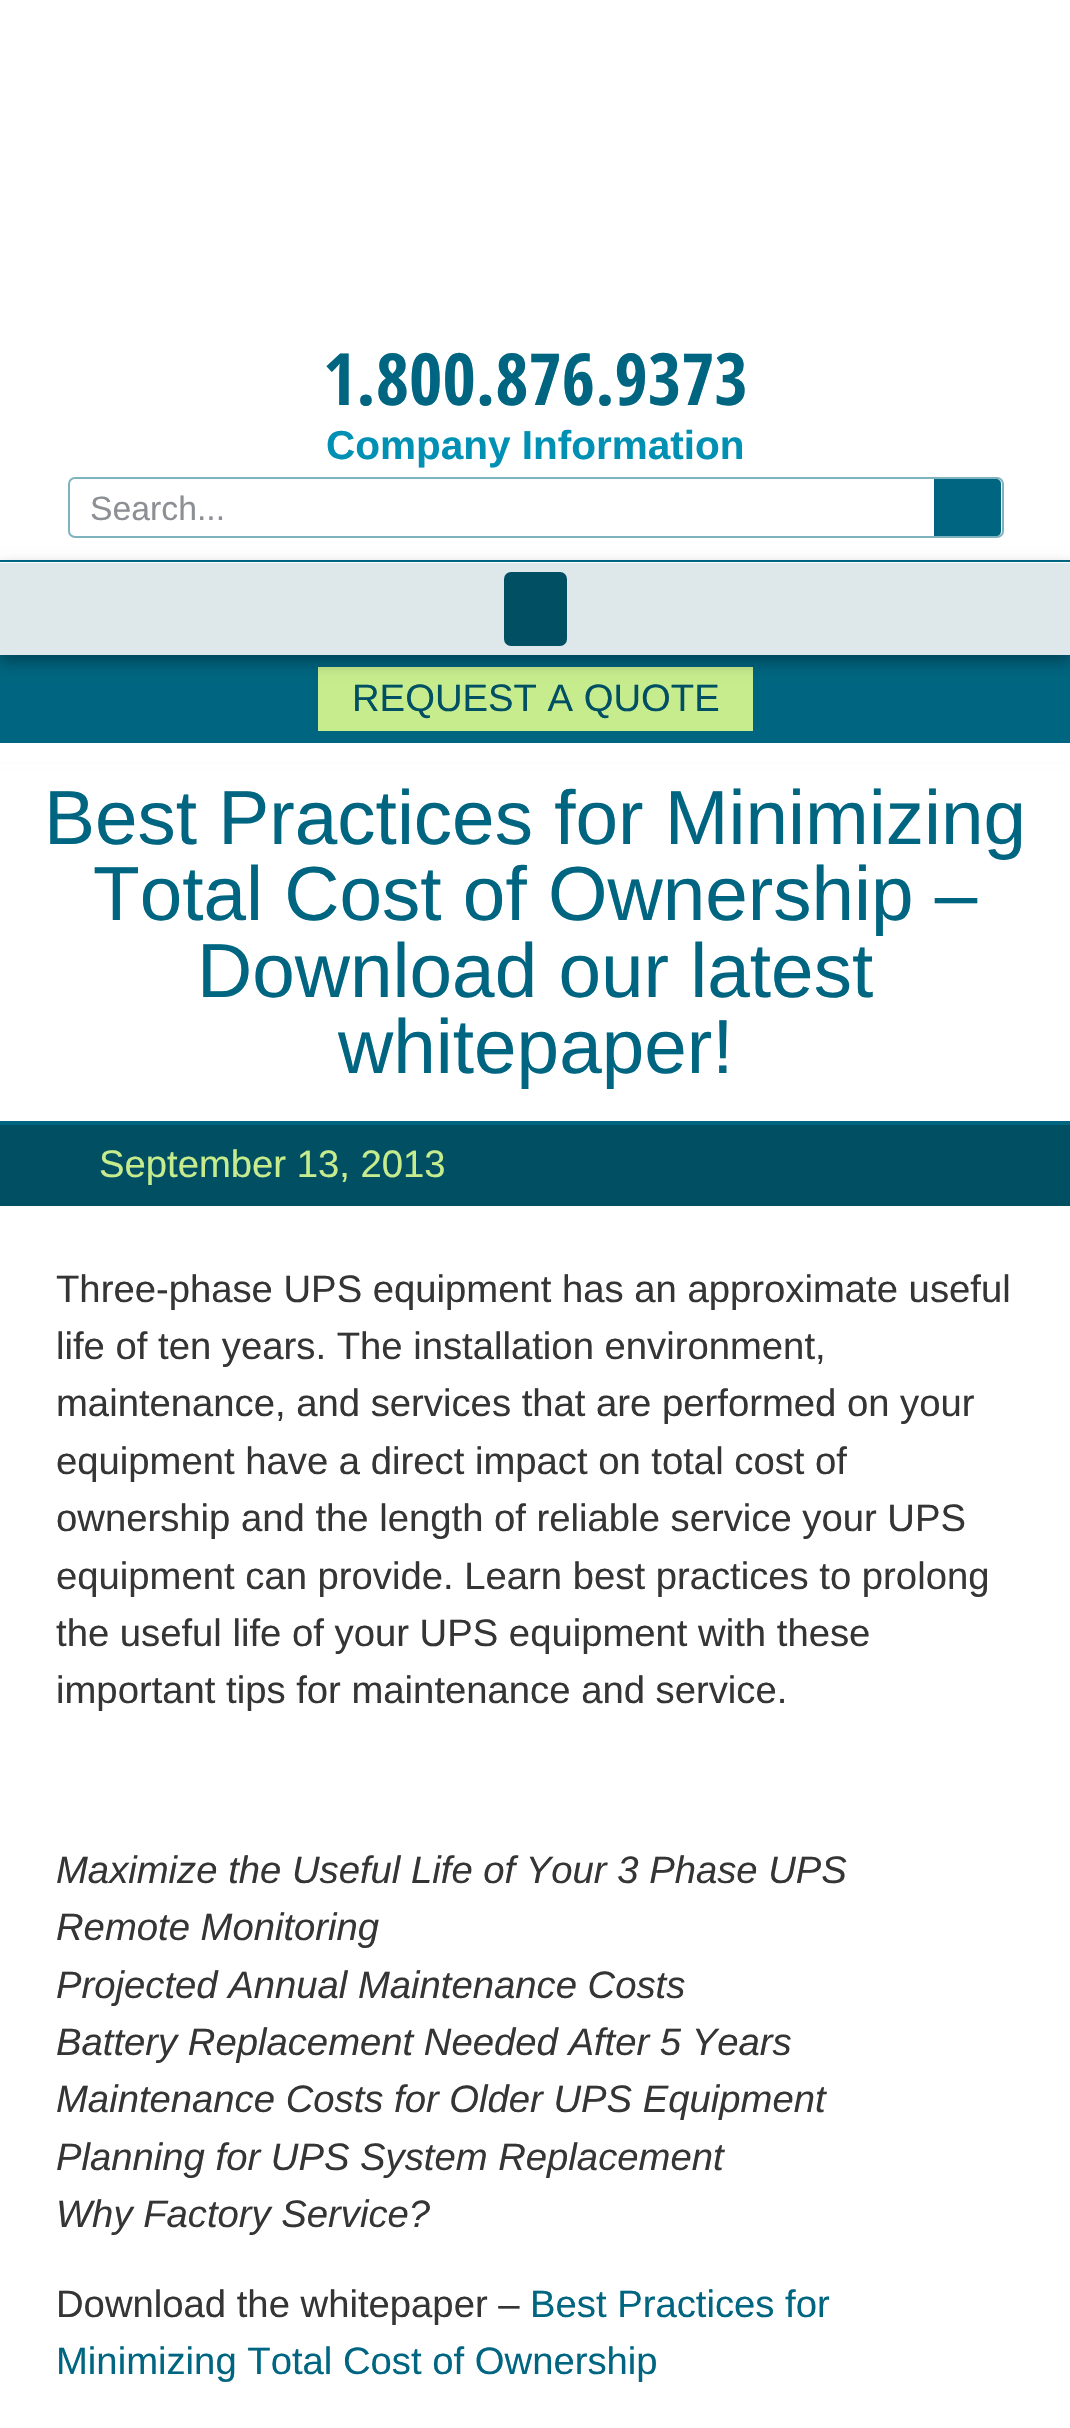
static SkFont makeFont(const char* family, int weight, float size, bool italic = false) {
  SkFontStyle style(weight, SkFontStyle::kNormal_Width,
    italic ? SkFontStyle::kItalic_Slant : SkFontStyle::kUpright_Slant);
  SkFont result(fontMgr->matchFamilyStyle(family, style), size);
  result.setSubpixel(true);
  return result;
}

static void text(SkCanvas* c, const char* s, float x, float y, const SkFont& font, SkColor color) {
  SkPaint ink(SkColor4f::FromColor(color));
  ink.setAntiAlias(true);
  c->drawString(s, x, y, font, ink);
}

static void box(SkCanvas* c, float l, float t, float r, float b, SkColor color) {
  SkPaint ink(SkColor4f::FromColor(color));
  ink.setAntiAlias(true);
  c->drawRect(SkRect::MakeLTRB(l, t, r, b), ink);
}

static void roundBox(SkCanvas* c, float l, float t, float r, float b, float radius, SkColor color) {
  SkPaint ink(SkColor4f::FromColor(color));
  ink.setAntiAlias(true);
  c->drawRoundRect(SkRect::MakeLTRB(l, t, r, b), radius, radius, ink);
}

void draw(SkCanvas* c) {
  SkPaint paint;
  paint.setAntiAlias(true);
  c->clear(0xffffffff);
  SkFont face1 = makeFont("Open Sans Condensed", 700, 72);
  text(c, "1.800.876.9373", 323, 405, face1, 0xff006580);
  SkFont face2 = makeFont("Liberation Sans", 700, 40.5f);
  text(c, "Company Information", 326, 459, face2, 0xff0090b4);
  paint.setStyle(SkPaint::kStroke_Style);
  paint.setStrokeWidth(2);
  paint.setColor(0xff7fb2bf);
  c->drawRoundRect(SkRect::MakeLTRB(69, 478, 1003, 537), 6, 6, paint);
  SkFont face3 = makeFont("Liberation Sans", 400, 33.75f);
  text(c, "Search...", 90, 520, face3, 0xff8c8f93);
  paint.setStyle(SkPaint::kFill_Style);
  paint.setColor(0xff006580);
  c->drawPath(SkPathBuilder().moveTo(934, 479).lineTo(996, 479).cubicTo(999, 479, 1001, 481, 1001, 484).lineTo(1001, 531).cubicTo(1001, 534, 999, 536, 996, 536).lineTo(934, 536).close().detach(), paint);
  paint.setColor(0x52000000);
  paint.setMaskFilter(SkMaskFilter::MakeBlur(kNormal_SkBlurStyle, 7));
  c->drawRect(SkRect::MakeLTRB(0, 662, 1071, 749), paint);
  paint.setMaskFilter(nullptr);
  box(c, 0, 655, 1070, 743, 0xff006580);
  box(c, 318, 667, 753, 731, 0xffc6ec8d);
  c->save();
  c->clipPath(SkPathBuilder(SkPathFillType::kEvenOdd).moveTo(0, 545).lineTo(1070, 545).lineTo(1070, 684).lineTo(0, 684).close().moveTo(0, 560).lineTo(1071, 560).lineTo(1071, 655).lineTo(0, 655).close().detach(), true);
  paint.setMaskFilter(SkMaskFilter::MakeBlur(kNormal_SkBlurStyle, 7));
  c->drawRect(SkRect::MakeLTRB(0, 567, 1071, 662), paint);
  paint.setMaskFilter(nullptr);
  c->restore();
  box(c, 0, 563, 1070, 655, 0xeddbe5e7);
  box(c, 0, 560, 1070, 562, 0xff006580);
  roundBox(c, 504, 572, 567, 646, 7, 0xff004f63);
  SkFont face4 = makeFont("Liberation Sans", 400, 38.25f);
  text(c, "REQUEST A QUOTE", 352, 711, face4, 0xff004f63);
  box(c, 0, 743, 1070, 762, 0xffffffff);
  box(c, 0, 1121, 1070, 1125, 0xff006580);
  SkFont face5 = makeFont("Liberation Sans", 400, 76.5f);
  text(c, "Best Practices for Minimizing", 44, 844, face5, 0xff006580);
  text(c, "Total Cost of Ownership –", 93, 920, face5, 0xff006580);
  text(c, "Download our latest", 197, 997, face5, 0xff006580);
  text(c, "whitepaper!", 338, 1073, face5, 0xff006580);
  box(c, 0, 1125, 1070, 1206, 0xff004f63);
  text(c, "September 13, 2013", 99, 1177, face4, 0xffc6ec8d);
  text(c, "Three-phase UPS equipment has an approximate useful", 56, 1302, face4, 0xff353535);
  text(c, "life of ten years. The installation environment,", 56, 1359, face4, 0xff353535);
  text(c, "maintenance, and services that are performed on your", 56, 1416, face4, 0xff353535);
  text(c, "equipment have a direct impact on total cost of", 56, 1474, face4, 0xff353535);
  text(c, "ownership and the length of reliable service your UPS", 56, 1531, face4, 0xff353535);
  text(c, "equipment can provide. Learn best practices to prolong", 56, 1589, face4, 0xff353535);
  text(c, "the useful life of your UPS equipment with these", 56, 1646, face4, 0xff353535);
  text(c, "important tips for maintenance and service.", 56, 1703, face4, 0xff353535);
  SkFont face6 = makeFont("Liberation Sans", 400, 38.25f, true);
  text(c, "Maximize the Useful Life of Your 3 Phase UPS", 56, 1883, face6, 0xff353535);
  text(c, "Remote Monitoring", 56, 1940, face6, 0xff353535);
  text(c, "Projected Annual Maintenance Costs", 56, 1998, face6, 0xff353535);
  text(c, "Battery Replacement Needed After 5 Years", 56, 2055, face6, 0xff353535);
  text(c, "Maintenance Costs for Older UPS Equipment", 56, 2112, face6, 0xff353535);
  text(c, "Planning for UPS System Replacement", 56, 2170, face6, 0xff353535);
  text(c, "Why Factory Service?", 56, 2227, face6, 0xff353535);
  text(c, "Download the whitepaper –", 56, 2317, face4, 0xff353535);
  text(c, "Best Practices for", 530, 2317, face4, 0xff006580);
  text(c, "Minimizing Total Cost of Ownership", 56, 2374, face4, 0xff006580);
}
